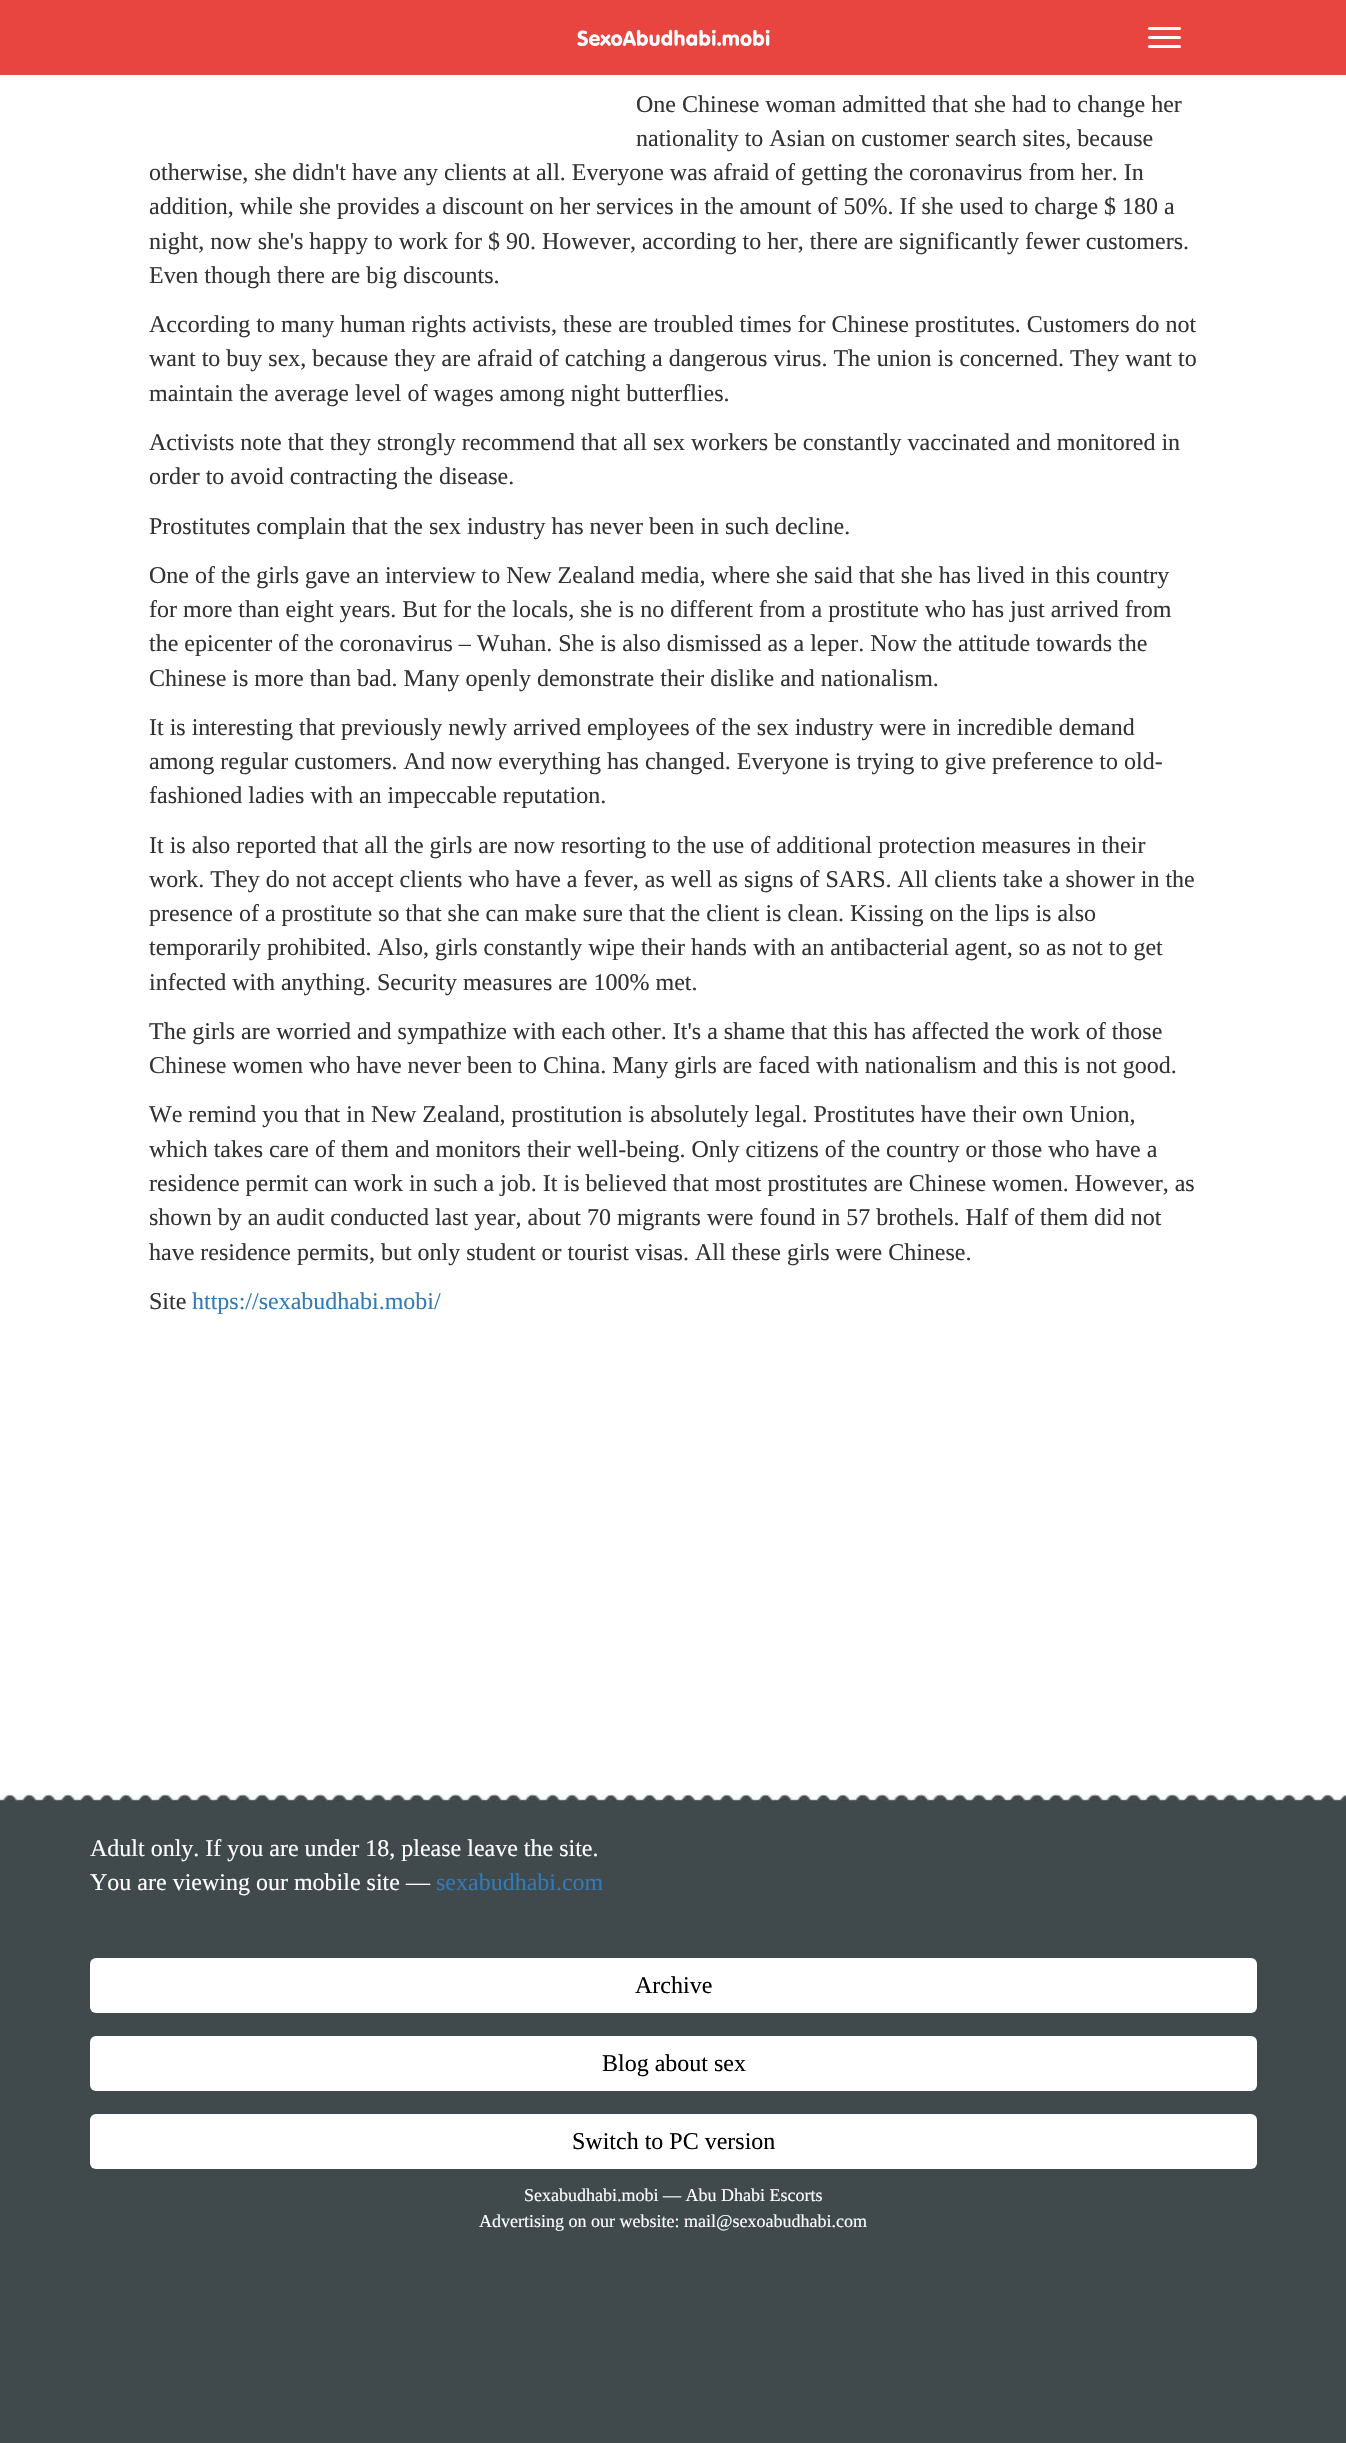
static SkFont makeFont(const char* family, int weight, float size, bool italic = false) {
  SkFontStyle style(weight, SkFontStyle::kNormal_Width,
    italic ? SkFontStyle::kItalic_Slant : SkFontStyle::kUpright_Slant);
  SkFont result(fontMgr->matchFamilyStyle(family, style), size);
  result.setSubpixel(true);
  return result;
}

static void text(SkCanvas* c, const char* s, float x, float y, const SkFont& font, SkColor color) {
  SkPaint ink(SkColor4f::FromColor(color));
  ink.setAntiAlias(true);
  c->drawString(s, x, y, font, ink);
}

static void box(SkCanvas* c, float l, float t, float r, float b, SkColor color) {
  SkPaint ink(SkColor4f::FromColor(color));
  ink.setAntiAlias(true);
  c->drawRect(SkRect::MakeLTRB(l, t, r, b), ink);
}

static void roundBox(SkCanvas* c, float l, float t, float r, float b, float radius, SkColor color) {
  SkPaint ink(SkColor4f::FromColor(color));
  ink.setAntiAlias(true);
  c->drawRoundRect(SkRect::MakeLTRB(l, t, r, b), radius, radius, ink);
}

static void picture(SkCanvas* c, const char* path, float l, float t, float r, float b) {
  auto image = SkImages::DeferredFromEncodedData(SkData::MakeFromFileName(path));
  c->drawImageRect(image, SkRect::MakeLTRB(l, t, r, b), SkSamplingOptions());
}

void draw(SkCanvas* c) {
  SkPaint paint;
  paint.setAntiAlias(true);
  c->clear(0xffffffff);
  box(c, 0, 0, 1346, 75, 0xffe84540);
  picture(c, "img_01.png", 577, 29, 770, 46);
  roundBox(c, 1148, 27, 1181, 30, 1.5f, 0xffffffff);
  roundBox(c, 1148, 36, 1181, 39, 1.5f, 0xffffffff);
  roundBox(c, 1148, 45, 1181, 48, 1.5f, 0xffffffff);
  SkFont face1 = makeFont("Liberation Serif", 400, 24);
  text(c, "One Chinese woman admitted that she had to change her", 636, 112, face1, 0xff333333);
  text(c, "nationality to Asian on customer search sites, because", 636, 146, face1, 0xff333333);
  text(c, "otherwise, she didn't have any clients at all. Everyone was afraid of getting the coronavirus from her. In", 149, 180, face1, 0xff333333);
  text(c, "addition, while she provides a discount on her services in the amount of 50%. If she used to charge $ 180 a", 149, 214, face1, 0xff333333);
  text(c, "night, now she's happy to work for $ 90. However, according to her, there are significantly fewer customers.", 149, 249, face1, 0xff333333);
  text(c, "Even though there are big discounts.", 149, 283, face1, 0xff333333);
  text(c, "According to many human rights activists, these are troubled times for Chinese prostitutes. Customers do not", 149, 332, face1, 0xff333333);
  text(c, "want to buy sex, because they are afraid of catching a dangerous virus. The union is concerned. They want to", 149, 366, face1, 0xff333333);
  text(c, "maintain the average level of wages among night butterflies.", 149, 401, face1, 0xff333333);
  text(c, "Activists note that they strongly recommend that all sex workers be constantly vaccinated and monitored in", 149, 450, face1, 0xff333333);
  text(c, "order to avoid contracting the disease.", 149, 484, face1, 0xff333333);
  text(c, "Prostitutes complain that the sex industry has never been in such decline.", 149, 534, face1, 0xff333333);
  text(c, "One of the girls gave an interview to New Zealand media, where she said that she has lived in this country", 149, 583, face1, 0xff333333);
  text(c, "for more than eight years. But for the locals, she is no different from a prostitute who has just arrived from", 149, 617, face1, 0xff333333);
  text(c, "the epicenter of the coronavirus – Wuhan. She is also dismissed as a leper. Now the attitude towards the", 149, 651, face1, 0xff333333);
  text(c, "Chinese is more than bad. Many openly demonstrate their dislike and nationalism.", 149, 686, face1, 0xff333333);
  text(c, "It is interesting that previously newly arrived employees of the sex industry were in incredible demand", 149, 735, face1, 0xff333333);
  text(c, "among regular customers. And now everything has changed. Everyone is trying to give preference to old-", 149, 769, face1, 0xff333333);
  text(c, "fashioned ladies with an impeccable reputation.", 149, 803, face1, 0xff333333);
  text(c, "It is also reported that all the girls are now resorting to the use of additional protection measures in their", 149, 853, face1, 0xff333333);
  text(c, "work. They do not accept clients who have a fever, as well as signs of SARS. All clients take a shower in the", 149, 887, face1, 0xff333333);
  text(c, "presence of a prostitute so that she can make sure that the client is clean. Kissing on the lips is also", 149, 921, face1, 0xff333333);
  text(c, "temporarily prohibited. Also, girls constantly wipe their hands with an antibacterial agent, so as not to get", 149, 955, face1, 0xff333333);
  text(c, "infected with anything. Security measures are 100% met.", 149, 990, face1, 0xff333333);
  text(c, "The girls are worried and sympathize with each other. It's a shame that this has affected the work of those", 149, 1039, face1, 0xff333333);
  text(c, "Chinese women who have never been to China. Many girls are faced with nationalism and this is not good.", 149, 1073, face1, 0xff333333);
  text(c, "We remind you that in New Zealand, prostitution is absolutely legal. Prostitutes have their own Union,", 149, 1122, face1, 0xff333333);
  text(c, "which takes care of them and monitors their well-being. Only citizens of the country or those who have a", 149, 1157, face1, 0xff333333);
  text(c, "residence permit can work in such a job. It is believed that most prostitutes are Chinese women. However, as", 149, 1191, face1, 0xff333333);
  text(c, "shown by an audit conducted last year, about 70 migrants were found in 57 brothels. Half of them did not", 149, 1225, face1, 0xff333333);
  text(c, "have residence permits, but only student or tourist visas. All these girls were Chinese.", 149, 1260, face1, 0xff333333);
  text(c, "Site", 149, 1309, face1, 0xff333333);
  text(c, "https://sexabudhabi.mobi/", 192, 1309, face1, 0xff337ab7);
  box(c, 0, 1801, 1346, 2443, 0xff404a4c);
  picture(c, "img_02.png", 0, 1794, 1346, 1802);
  text(c, "Adult only. If you are under 18, please leave the site.", 90, 1856, face1, 0xffffffff);
  text(c, "You are viewing our mobile site —", 90, 1890, face1, 0xffffffff);
  text(c, "sexabudhabi.com", 436, 1890, face1, 0xff337ab7);
  roundBox(c, 90, 1958, 1257, 2013, 6, 0xffffffff);
  text(c, "Archive", 635, 1993, face1, 0xff000000);
  roundBox(c, 90, 2036, 1257, 2091, 6, 0xffffffff);
  text(c, "Blog about sex", 602, 2071, face1, 0xff000000);
  roundBox(c, 90, 2114, 1257, 2169, 6, 0xffffffff);
  text(c, "Switch to PC version", 572, 2149, face1, 0xff000000);
  SkFont face2 = makeFont("Liberation Serif", 400, 18);
  text(c, "Sexabudhabi.mobi — Abu Dhabi Escorts", 524, 2201, face2, 0xffffffff);
  text(c, "Advertising on our website: mail@sexoabudhabi.com", 479, 2227, face2, 0xffffffff);
}
